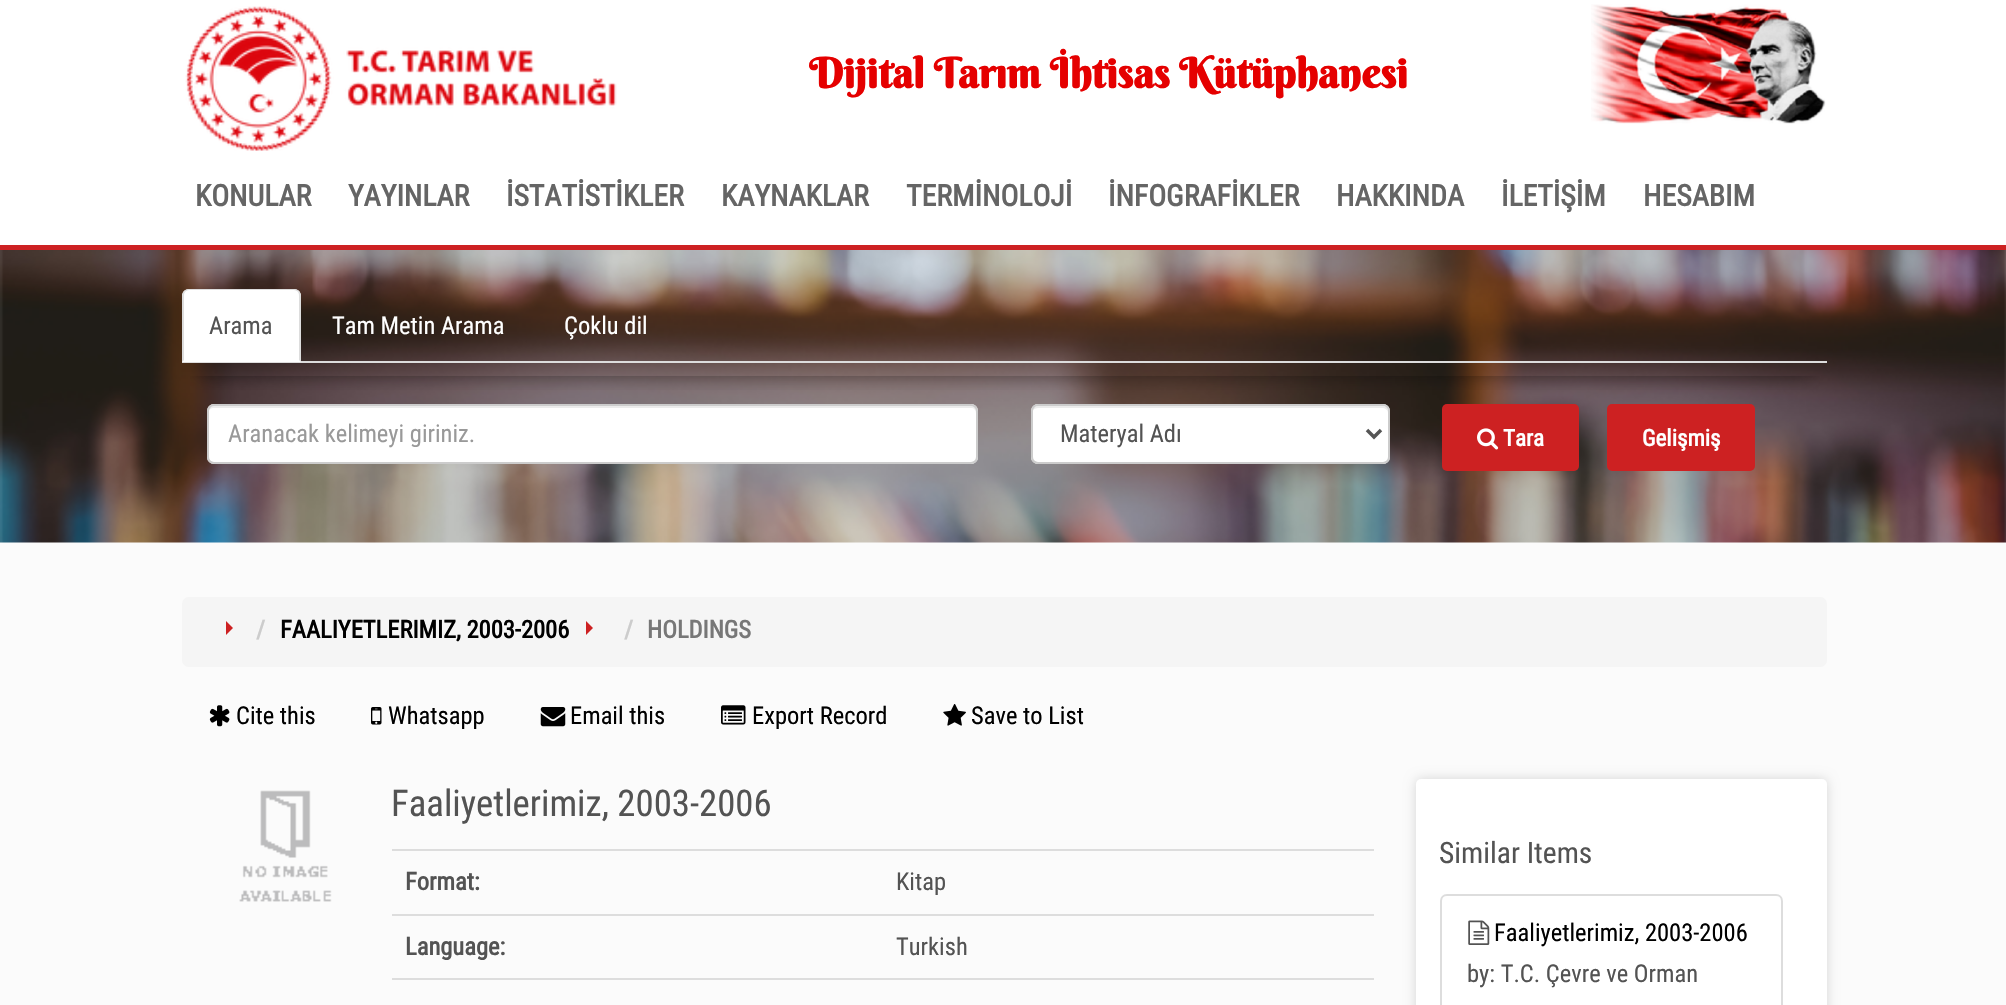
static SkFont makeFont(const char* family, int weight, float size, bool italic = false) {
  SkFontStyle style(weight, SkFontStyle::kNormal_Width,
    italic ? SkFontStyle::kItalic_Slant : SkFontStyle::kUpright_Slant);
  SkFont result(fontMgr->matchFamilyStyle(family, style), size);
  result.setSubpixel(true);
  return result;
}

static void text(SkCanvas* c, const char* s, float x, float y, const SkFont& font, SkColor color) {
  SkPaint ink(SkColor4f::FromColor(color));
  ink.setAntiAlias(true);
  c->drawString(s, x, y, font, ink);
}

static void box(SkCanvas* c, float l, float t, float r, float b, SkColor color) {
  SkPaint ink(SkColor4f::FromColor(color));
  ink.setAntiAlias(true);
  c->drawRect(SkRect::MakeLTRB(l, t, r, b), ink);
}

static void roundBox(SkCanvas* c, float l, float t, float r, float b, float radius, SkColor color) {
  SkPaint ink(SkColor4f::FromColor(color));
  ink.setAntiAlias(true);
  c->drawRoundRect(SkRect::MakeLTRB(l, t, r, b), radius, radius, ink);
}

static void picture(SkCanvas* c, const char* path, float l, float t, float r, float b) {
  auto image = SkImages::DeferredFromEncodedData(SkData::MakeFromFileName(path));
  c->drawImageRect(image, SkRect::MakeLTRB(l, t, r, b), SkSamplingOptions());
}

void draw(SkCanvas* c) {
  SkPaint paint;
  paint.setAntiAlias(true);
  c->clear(0xfffbfbfb);
  box(c, 0, 0, 2006, 245, 0xffffffff);
  box(c, 0, 245, 2006, 250, 0xffcd2122);
  picture(c, "img_01.png", 185, 6, 617, 151);
  SkFont face1 = makeFont("Berkshire Swash", 700, 41.6f);
  text(c, "Dijital Tarım İhtisas Kütüphanesi", 809, 88, face1, 0xffe50000);
  picture(c, "img_02.png", 1591, 4, 1826, 124);
  SkFont face2 = makeFont("Roboto Condensed", 700, 29.75f);
  text(c, "KONULAR", 195, 206, face2, 0xff656565);
  text(c, "YAYINLAR", 348, 206, face2, 0xff656565);
  text(c, "İSTATİSTİKLER", 506, 206, face2, 0xff656565);
  text(c, "KAYNAKLAR", 721, 206, face2, 0xff656565);
  text(c, "TERMİNOLOJİ", 906, 206, face2, 0xff656565);
  text(c, "İNFOGRAFİKLER", 1108, 206, face2, 0xff656565);
  text(c, "HAKKINDA", 1336, 206, face2, 0xff656565);
  text(c, "İLETİŞİM", 1501, 206, face2, 0xff656565);
  text(c, "HESABIM", 1643, 206, face2, 0xff656565);
  picture(c, "img_03.png", 0, 250, 2006, 543);
  c->save();
  c->clipRect(SkRect::MakeLTRB(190, 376, 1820, 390));
  paint.setColor(0x59000000);
  paint.setMaskFilter(SkMaskFilter::MakeBlur(kNormal_SkBlurStyle, 9));
  c->drawRect(SkRect::MakeLTRB(200, 282, 1810, 376), paint);
  paint.setMaskFilter(nullptr);
  c->restore();
  box(c, 182, 361, 1827, 363, 0xffdddddd);
  paint.setColor(0xffffffff);
  c->drawPath(SkPathBuilder().moveTo(189, 289).lineTo(294, 289).cubicTo(298, 289, 301, 292, 301, 296).lineTo(301, 362).lineTo(182, 362).lineTo(182, 296).cubicTo(182, 292, 185, 289, 189, 289).close().detach(), paint);
  paint.setColor(0xffdddddd);
  c->drawPath(SkPathBuilder().moveTo(189, 289).cubicTo(187, 289, 185, 290, 184, 291).lineTo(185, 292).cubicTo(186, 291, 187, 290, 189, 290).lineTo(294, 290).cubicTo(296, 290, 297, 291, 298, 292).lineTo(299, 291).cubicTo(298, 290, 296, 289, 294, 289).close().detach(), paint);
  c->drawPath(SkPathBuilder().moveTo(299, 291).cubicTo(300, 292, 301, 294, 301, 296).lineTo(301, 362).lineTo(299, 360).lineTo(299, 296).cubicTo(299, 295, 299, 293, 298, 292).close().detach(), paint);
  c->drawPath(SkPathBuilder().moveTo(182, 296).lineTo(182, 362).lineTo(184, 360).lineTo(184, 296).cubicTo(184, 295, 184, 293, 185, 292).lineTo(184, 291).cubicTo(183, 292, 182, 294, 182, 296).close().detach(), paint);
  SkFont face3 = makeFont("Roboto Condensed", 400, 24.5f);
  text(c, "Arama", 209, 334, face3, 0xff535353);
  text(c, "Tam Metin Arama", 332, 334, face3, 0xffffffff);
  text(c, "Çoklu dil", 564, 334, face3, 0xffffffff);
  roundBox(c, 207, 404, 978, 464, 7, 0xffffffff);
  paint.setColor(0xffececec);
  c->drawPath(SkPathBuilder().moveTo(214, 408).lineTo(971, 408).cubicTo(974, 408, 976, 410, 976, 413).lineTo(976, 458).lineTo(976, 461).cubicTo(976, 460, 977, 458, 977, 457).lineTo(977, 411).cubicTo(977, 408, 975, 406, 972, 406).lineTo(213, 406).cubicTo(210, 406, 208, 408, 208, 411).lineTo(208, 413).cubicTo(208, 410, 211, 408, 214, 408).close().detach(), paint);
  paint.setStyle(SkPaint::kStroke_Style);
  paint.setStrokeWidth(2);
  paint.setColor(0xffcccccc);
  c->drawRoundRect(SkRect::MakeLTRB(208, 405, 977, 463), 6, 6, paint);
  text(c, "Aranacak kelimeyi giriniz.", 228, 442, face3, 0xff999999);
  roundBox(c, 1031, 404, 1390, 464, 7, 0xffffffff);
  paint.setStyle(SkPaint::kFill_Style);
  paint.setColor(0xffececec);
  c->drawPath(SkPathBuilder().moveTo(1038, 408).lineTo(1382, 408).cubicTo(1385, 408, 1388, 410, 1388, 413).cubicTo(1388, 410, 1387, 406, 1383, 406).lineTo(1038, 406).cubicTo(1036, 406, 1033, 408, 1033, 410).cubicTo(1034, 409, 1036, 408, 1038, 408).close().detach(), paint);
  paint.setStyle(SkPaint::kStroke_Style);
  paint.setColor(0xffcccccc);
  c->drawRoundRect(SkRect::MakeLTRB(1032, 405, 1389, 463), 6, 6, paint);
  paint.setStrokeWidth(3.5f);
  paint.setColor(0xff555555);
  c->drawPath(SkPathBuilder().moveTo(1367, 430).lineTo(1374, 437).lineTo(1381, 430).detach(), paint);
  text(c, "Materyal Adı", 1060, 442, face3, 0xff535353);
  roundBox(c, 1442, 404, 1579, 471, 5, 0xffcd2122);
  picture(c, "img_04.png", 1477, 428, 1499, 450);
  SkFont face4 = makeFont("Roboto Condensed", 700, 23);
  text(c, "Tara", 1503, 446, face4, 0xffffffff);
  roundBox(c, 1607, 404, 1755, 471, 5, 0xffcd2122);
  text(c, "Gelişmiş", 1642, 446, face4, 0xffffffff);
  roundBox(c, 182, 597, 1827, 667, 7, 0xfff5f5f5);
  paint.setStyle(SkPaint::kFill_Style);
  paint.setColor(0xffcd2122);
  c->drawPath(SkPathBuilder().moveTo(226, 635).lineTo(226, 621).lineTo(233, 628).close().detach(), paint);
  SkFont face5 = makeFont("Roboto Condensed", 700, 24.5f);
  text(c, "/", 256, 638, face5, 0xffcccccc);
  text(c, "FAALIYETLERIMIZ, 2003-2006", 280, 638, face5, 0xff000000);
  c->drawPath(SkPathBuilder().moveTo(586, 635).lineTo(586, 621).lineTo(593, 628).close().detach(), paint);
  text(c, "/", 624, 638, face5, 0xffcccccc);
  text(c, "HOLDINGS", 647, 638, face5, 0xff777777);
  picture(c, "img_05.png", 209, 705, 230, 727);
  text(c, "Cite this", 236, 724, face3, 0xff000000);
  picture(c, "img_06.png", 371, 707, 382, 725);
  text(c, "Whatsapp", 388, 724, face3, 0xff000000);
  picture(c, "img_07.png", 540, 707, 566, 727);
  text(c, "Email this", 570, 724, face3, 0xff000000);
  picture(c, "img_08.png", 721, 705, 746, 725);
  text(c, "Export Record", 752, 724, face3, 0xff000000);
  picture(c, "img_09.png", 943, 704, 966, 726);
  text(c, "Save to List", 971, 724, face3, 0xff000000);
  picture(c, "img_10.png", 239, 790, 332, 902);
  SkFont face6 = makeFont("Roboto Condensed", 400, 36.75f);
  text(c, "Faaliyetlerimiz, 2003-2006", 391, 816, face6, 0xff535353);
  text(c, "Format:", 405, 890, face5, 0xff535353);
  box(c, 392, 849, 1374, 851, 0xffdddddd);
  text(c, "Kitap", 896, 890, face3, 0xff535353);
  text(c, "Language:", 405, 955, face5, 0xff535353);
  box(c, 392, 914, 1374, 916, 0xffdddddd);
  text(c, "Turkish", 896, 955, face3, 0xff535353);
  box(c, 392, 978, 1374, 980, 0xffdddddd);
  paint.setColor(0x26000000);
  paint.setMaskFilter(SkMaskFilter::MakeBlur(kNormal_SkBlurStyle, 6));
  c->drawRoundRect(SkRect::MakeLTRB(1416, 779, 1827, 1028), 5, 5, paint);
  paint.setMaskFilter(nullptr);
  roundBox(c, 1416, 779, 1827, 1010, 5, 0xffffffff);
  SkFont face7 = makeFont("Roboto Condensed", 400, 29.5f);
  text(c, "Similar Items", 1439, 863, face7, 0xff535353);
  paint.setStyle(SkPaint::kStroke_Style);
  paint.setStrokeWidth(2);
  paint.setColor(0xffdddddd);
  c->drawPath(SkPathBuilder().moveTo(1447, 895).lineTo(1776, 895).cubicTo(1779.5f, 895, 1782, 897.5f, 1782, 901).lineTo(1782, 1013).lineTo(1441, 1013).lineTo(1441, 901).cubicTo(1441, 897.5f, 1443.5f, 895, 1447, 895).close().detach(), paint);
  picture(c, "img_11.png", 1468, 920, 1490, 945);
  text(c, "Faaliyetlerimiz, 2003-2006", 1494, 941, face3, 0xff000000);
  text(c, "by: T.C. Çevre ve Orman", 1467, 982, face3, 0xff535353);
}
